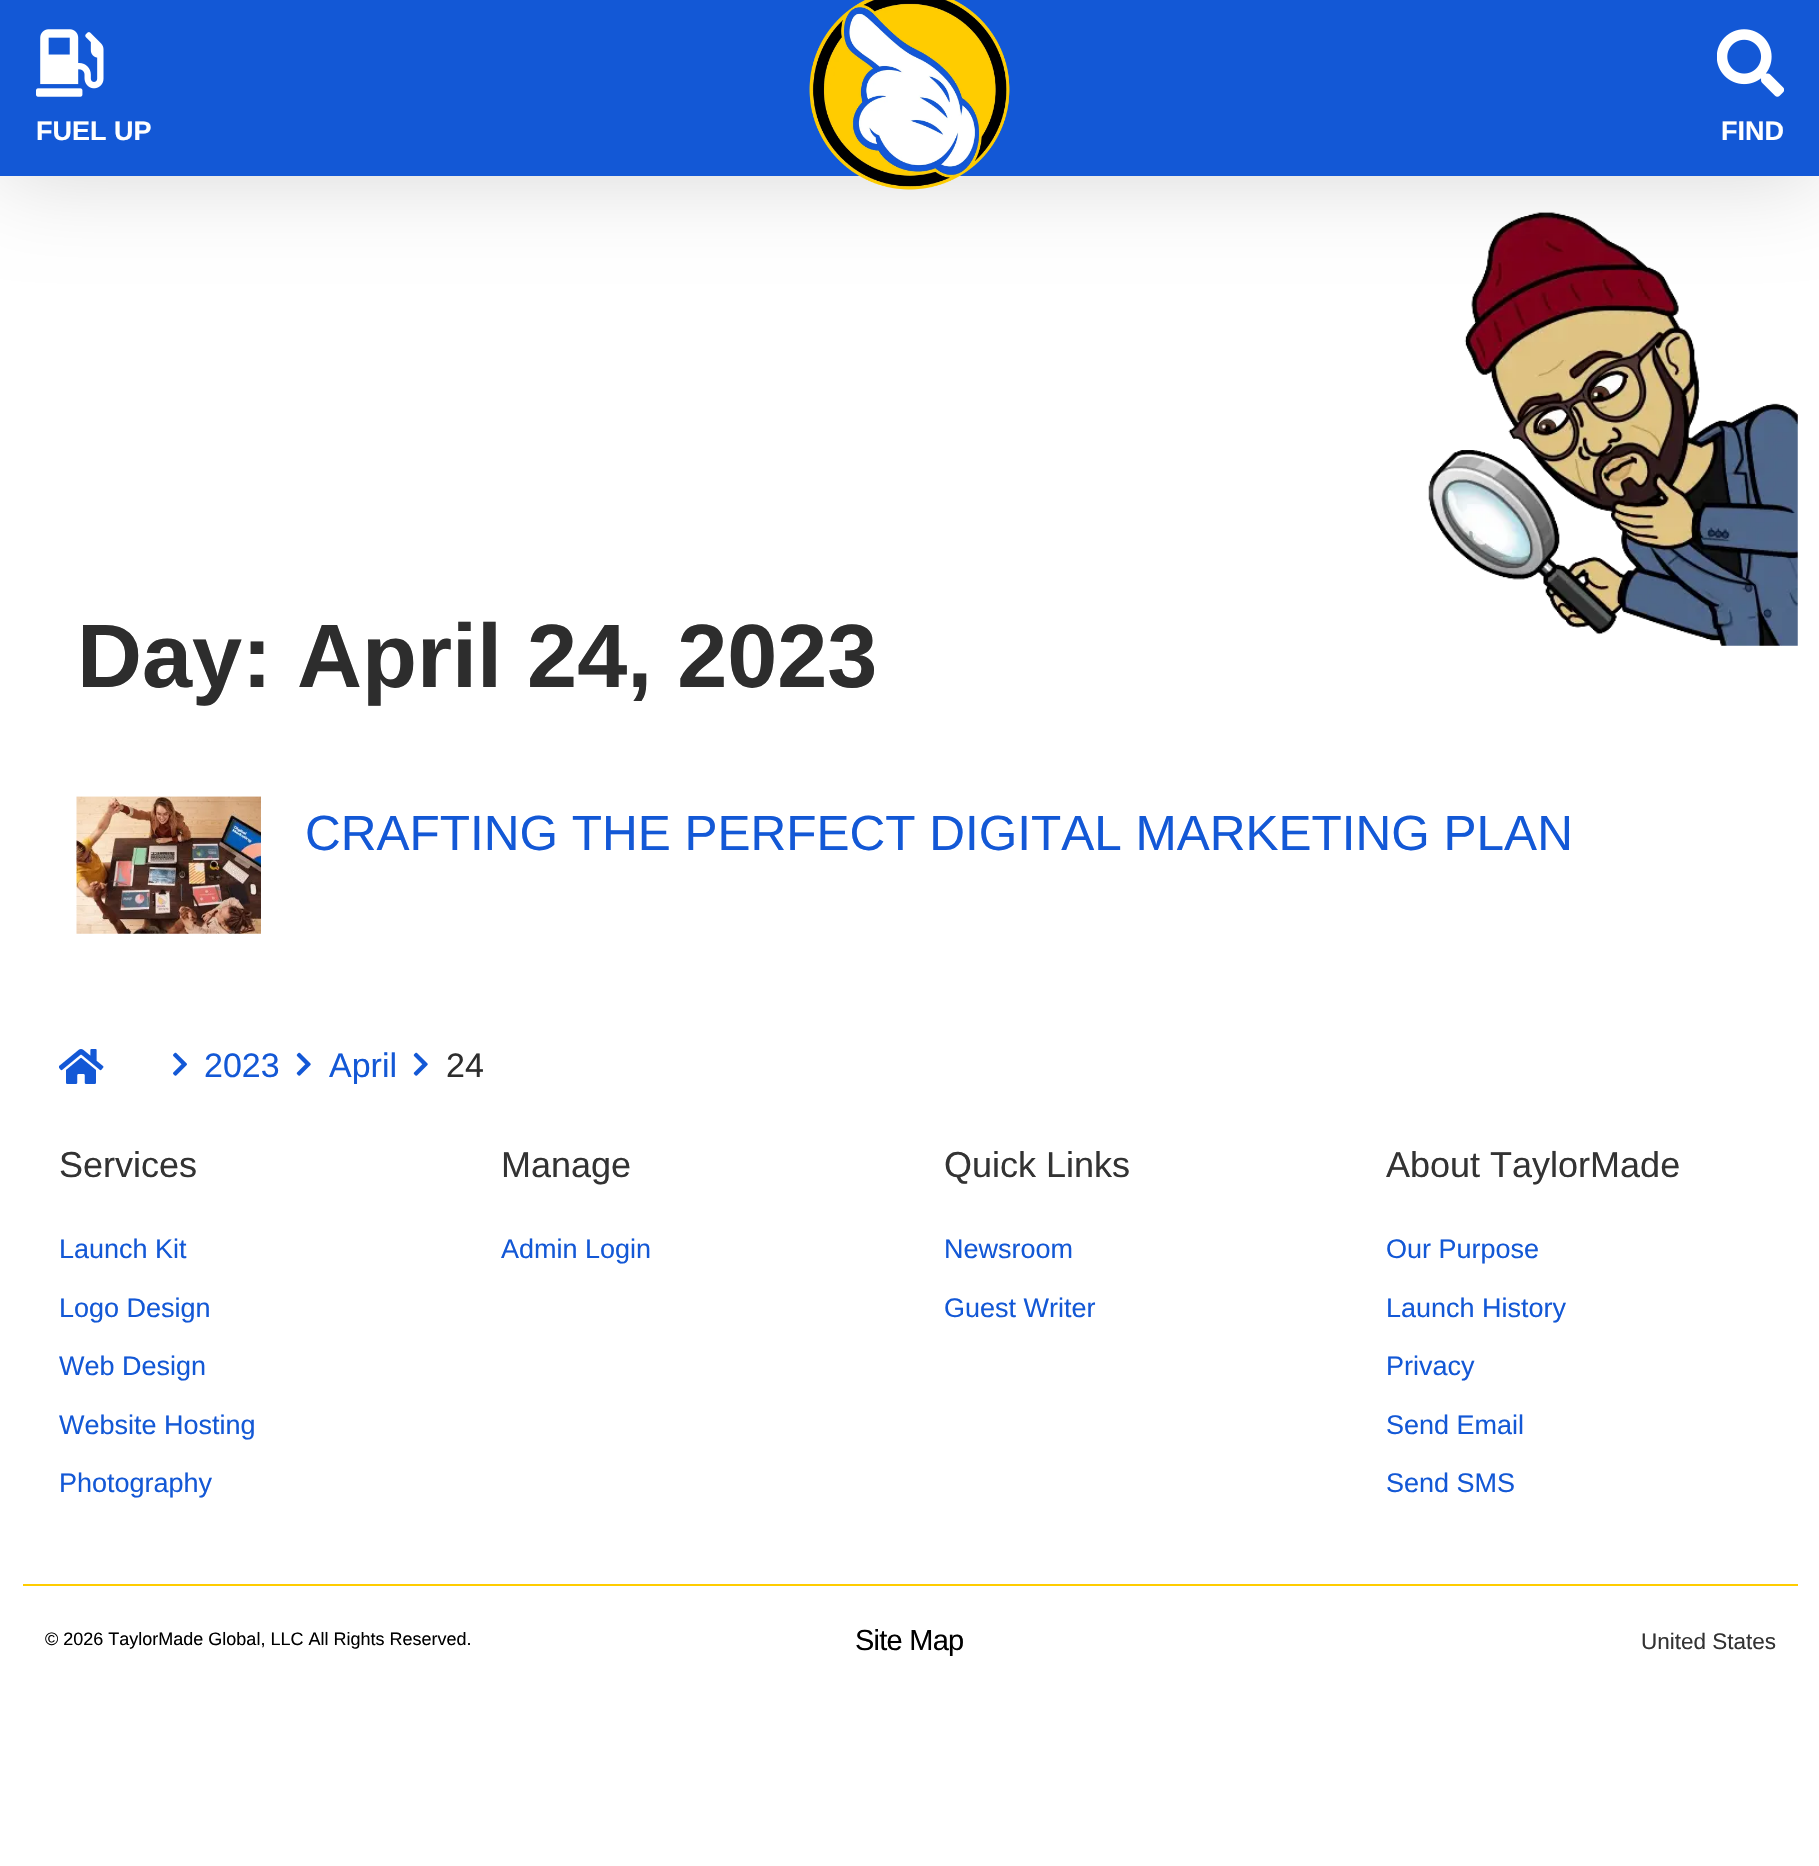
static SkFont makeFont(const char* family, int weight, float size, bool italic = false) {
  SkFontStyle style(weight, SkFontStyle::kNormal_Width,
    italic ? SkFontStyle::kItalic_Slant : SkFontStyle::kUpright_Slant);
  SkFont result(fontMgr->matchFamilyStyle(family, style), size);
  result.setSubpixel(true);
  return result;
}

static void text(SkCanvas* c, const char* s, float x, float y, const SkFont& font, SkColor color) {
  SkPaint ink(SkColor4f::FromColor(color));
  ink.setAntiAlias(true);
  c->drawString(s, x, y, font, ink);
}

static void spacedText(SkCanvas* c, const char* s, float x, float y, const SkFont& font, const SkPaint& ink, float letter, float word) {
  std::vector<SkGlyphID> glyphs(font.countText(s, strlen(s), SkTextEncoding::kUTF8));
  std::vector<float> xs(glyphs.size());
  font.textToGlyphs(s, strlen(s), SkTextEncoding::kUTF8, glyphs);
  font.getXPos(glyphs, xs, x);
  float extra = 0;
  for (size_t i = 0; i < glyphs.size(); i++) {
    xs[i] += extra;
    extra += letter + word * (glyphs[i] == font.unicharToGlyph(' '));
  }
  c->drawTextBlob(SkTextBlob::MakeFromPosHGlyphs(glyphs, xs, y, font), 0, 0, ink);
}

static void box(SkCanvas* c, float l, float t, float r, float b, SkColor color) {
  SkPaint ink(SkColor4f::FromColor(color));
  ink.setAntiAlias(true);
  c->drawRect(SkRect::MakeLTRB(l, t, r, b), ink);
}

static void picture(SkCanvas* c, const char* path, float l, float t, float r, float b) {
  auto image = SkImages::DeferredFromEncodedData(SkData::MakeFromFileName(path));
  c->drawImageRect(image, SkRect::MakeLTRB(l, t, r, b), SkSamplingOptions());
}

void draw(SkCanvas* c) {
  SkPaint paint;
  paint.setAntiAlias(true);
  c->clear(0xffffffff);
  picture(c, "img_04.png", 1428, 212, 1798, 646);
  paint.setColor(0x29000000);
  paint.setMaskFilter(SkMaskFilter::MakeBlur(kNormal_SkBlurStyle, 45));
  c->drawRect(SkRect::MakeLTRB(0, 0, 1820, 176), paint);
  paint.setMaskFilter(nullptr);
  box(c, 0, 0, 1819, 176, 0xff1358d6);
  picture(c, "img_01.png", 36, 29, 104, 97);
  SkFont face1 = makeFont("Liberation Sans", 700, 27);
  text(c, "FUEL UP", 36, 140, face1, 0xffffffff);
  picture(c, "img_02.png", 809, 0, 1010, 190);
  picture(c, "img_03.png", 1717, 29, 1784, 97);
  text(c, "FIND", 1721, 140, face1, 0xffffffff);
  SkFont face2 = makeFont("Liberation Sans", 700, 90);
  text(c, "Day: April 24, 2023", 77, 687, face2, 0xff2d2d2d);
  picture(c, "img_05.png", 76, 796, 261, 934);
  SkFont face3 = makeFont("Liberation Sans", 400, 49.5f);
  text(c, "CRAFTING THE PERFECT DIGITAL MARKETING PLAN", 305, 850, face3, 0xff1358d6);
  picture(c, "img_06.png", 59, 1049, 104, 1084);
  picture(c, "img_07.png", 173, 1052, 187, 1076);
  SkFont face4 = makeFont("Liberation Sans", 400, 34);
  text(c, "2023", 204, 1077, face4, 0xff1358d6);
  picture(c, "img_08.png", 296, 1052, 311, 1076);
  text(c, "April", 329, 1077, face4, 0xff1358d6);
  picture(c, "img_08.png", 413, 1052, 428, 1076);
  text(c, "24", 446, 1077, face4, 0xff2d2d2d);
  SkFont face5 = makeFont("Liberation Sans", 400, 36);
  text(c, "Services", 59, 1177, face5, 0xff333333);
  SkFont face6 = makeFont("Liberation Sans", 400, 27);
  text(c, "Launch Kit", 59, 1258, face6, 0xff1358d6);
  text(c, "Logo Design", 59, 1317, face6, 0xff1358d6);
  text(c, "Web Design", 59, 1375, face6, 0xff1358d6);
  text(c, "Website Hosting", 59, 1434, face6, 0xff1358d6);
  text(c, "Photography", 59, 1492, face6, 0xff1358d6);
  text(c, "Manage", 501, 1177, face5, 0xff333333);
  text(c, "Admin Login", 501, 1258, face6, 0xff1358d6);
  text(c, "Quick Links", 944, 1177, face5, 0xff333333);
  text(c, "Newsroom", 944, 1258, face6, 0xff1358d6);
  text(c, "Guest Writer", 944, 1317, face6, 0xff1358d6);
  text(c, "About TaylorMade", 1386, 1177, face5, 0xff333333);
  text(c, "Our Purpose", 1386, 1258, face6, 0xff1358d6);
  text(c, "Launch History", 1386, 1317, face6, 0xff1358d6);
  text(c, "Privacy", 1386, 1375, face6, 0xff1358d6);
  text(c, "Send Email", 1386, 1434, face6, 0xff1358d6);
  text(c, "Send SMS", 1386, 1492, face6, 0xff1358d6);
  box(c, 23, 1584, 1798, 1586, 0xffffcc00);
  SkFont face7 = makeFont("Liberation Sans", 400, 18);
  text(c, "© 2026 TaylorMade Global, LLC All Rights Reserved.", 45, 1645, face7, 0xff000000);
  SkFont face8 = makeFont("Liberation Sans", 400, 29);
  paint.setColor(0xff000000);
  spacedText(c, "Site Map", 855, 1650, face8, paint, -0.75f, 0);
  SkFont face9 = makeFont("Liberation Sans", 400, 22.5f);
  text(c, "United States", 1641, 1649, face9, 0xff333333);
}
